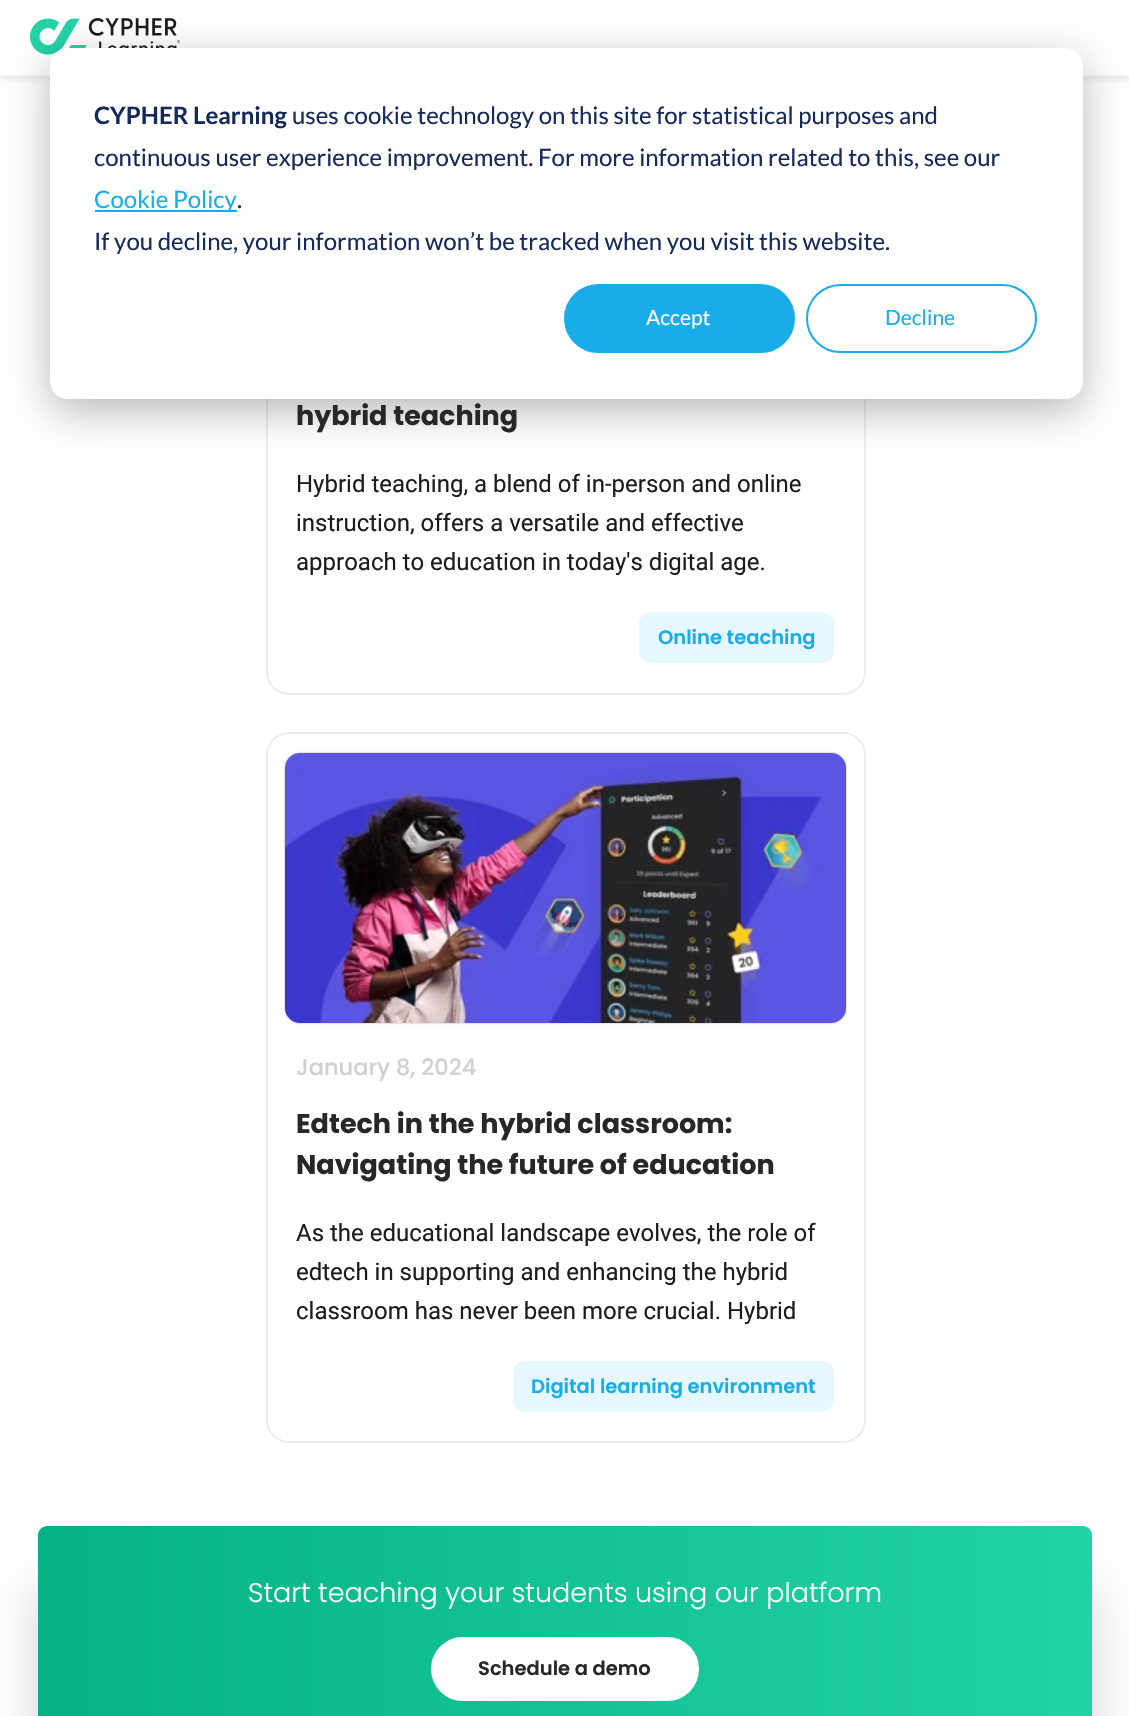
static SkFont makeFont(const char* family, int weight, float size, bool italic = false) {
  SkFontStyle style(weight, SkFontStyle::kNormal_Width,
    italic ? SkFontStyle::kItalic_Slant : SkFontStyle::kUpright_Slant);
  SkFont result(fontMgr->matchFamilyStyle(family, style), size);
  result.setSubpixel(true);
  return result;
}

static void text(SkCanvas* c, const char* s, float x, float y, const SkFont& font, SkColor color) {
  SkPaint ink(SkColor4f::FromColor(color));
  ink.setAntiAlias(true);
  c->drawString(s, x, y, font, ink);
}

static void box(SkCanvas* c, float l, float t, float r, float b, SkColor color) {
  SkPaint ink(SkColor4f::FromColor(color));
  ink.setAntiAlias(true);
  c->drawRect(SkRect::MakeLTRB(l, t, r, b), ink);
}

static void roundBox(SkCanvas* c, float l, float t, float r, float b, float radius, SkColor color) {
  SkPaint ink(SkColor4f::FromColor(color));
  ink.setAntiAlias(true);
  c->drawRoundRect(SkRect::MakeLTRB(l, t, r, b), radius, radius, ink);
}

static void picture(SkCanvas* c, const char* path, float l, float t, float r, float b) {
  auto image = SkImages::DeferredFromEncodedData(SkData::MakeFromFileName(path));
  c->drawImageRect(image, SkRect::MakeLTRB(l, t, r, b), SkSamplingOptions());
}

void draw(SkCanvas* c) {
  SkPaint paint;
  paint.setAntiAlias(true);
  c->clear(0xffffffff);
  paint.setStyle(SkPaint::kStroke_Style);
  paint.setStrokeWidth(2);
  paint.setColor(0xffededed);
  c->drawRoundRect(SkRect::MakeLTRB(267, -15, 865, 694), 22, 22, paint);
  paint.setStyle(SkPaint::kFill_Style);
  paint.setColor(0x2e000000);
  paint.setMaskFilter(SkMaskFilter::MakeBlur(kNormal_SkBlurStyle, 4));
  c->drawRect(SkRect::MakeLTRB(0, 0, 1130, 77), paint);
  paint.setMaskFilter(nullptr);
  box(c, 0, 0, 1129, 75, 0xffffffff);
  box(c, 0, 75, 1129, 77, 0xfff5f5f5);
  picture(c, "img_01.png", 30, 18, 180, 55);
  paint.setColor(0x47000000);
  paint.setMaskFilter(SkMaskFilter::MakeBlur(kNormal_SkBlurStyle, 21));
  c->drawRoundRect(SkRect::MakeLTRB(50, 60, 1083, 411), 18, 18, paint);
  paint.setMaskFilter(nullptr);
  roundBox(c, 50, 48, 1083, 399, 18, 0xffffffff);
  SkFont face1 = makeFont("Lato", 700, 24);
  text(c, "CYPHER Learning", 94, 124, face1, 0xff15295a);
  SkFont face2 = makeFont("Lato", 400, 24);
  text(c, "uses cookie technology on this site for statistical purposes and", 292, 124, face2, 0xff15295a);
  text(c, "continuous user experience improvement. For more information related to this, see our", 94, 166, face2, 0xff15295a);
  box(c, 95, 210, 237, 212, 0xff18ade8);
  text(c, "Cookie Policy", 94, 208, face2, 0xff18ade8);
  text(c, ".", 237, 208, face2, 0xff15295a);
  text(c, "If you decline, your information won’t be tracked when you visit this website.", 94, 250, face2, 0xff15295a);
  paint.setColor(0xff18ade8);
  c->drawRoundRect(SkRect::MakeLTRB(565, 285, 794, 352), 33.5f, 33.5f, paint);
  paint.setStyle(SkPaint::kStroke_Style);
  c->drawRoundRect(SkRect::MakeLTRB(565, 285, 794, 352), 33.5f, 33.5f, paint);
  SkFont face3 = makeFont("Lato", 400, 21);
  text(c, "Accept", 646, 325, face3, 0xffffffff);
  c->drawRoundRect(SkRect::MakeLTRB(807, 285, 1036, 352), 33.5f, 33.5f, paint);
  text(c, "Decline", 885, 325, face3, 0xff18ade8);
  SkFont face4 = makeFont("Poppins", 700, 27);
  text(c, "hybrid teaching", 296, 425, face4, 0xff272727);
  SkFont face5 = makeFont("Roboto", 400, 24);
  text(c, "Hybrid teaching, a blend of in-person and online", 296, 492, face5, 0xff1c1c1c);
  text(c, "instruction, offers a versatile and effective", 296, 531, face5, 0xff1c1c1c);
  text(c, "approach to education in today's digital age.", 296, 570, face5, 0xff1c1c1c);
  roundBox(c, 639, 612, 834, 663, 12, 0xffe5f8ff);
  SkFont face6 = makeFont("Poppins", 600, 19.5f);
  text(c, "Online teaching", 658, 644, face6, 0xff18ade8);
  paint.setColor(0xffededed);
  c->drawRoundRect(SkRect::MakeLTRB(267, 733, 865, 1442), 22, 22, paint);
  paint.setStyle(SkPaint::kFill_Style);
  paint.setColor(0x66000000);
  paint.setMaskFilter(SkMaskFilter::MakeBlur(kNormal_SkBlurStyle, 1));
  c->drawRoundRect(SkRect::MakeLTRB(285, 753, 846, 1023), 15, 15, paint);
  paint.setMaskFilter(nullptr);
  roundBox(c, 285, 753, 846, 1023, 15, 0xfff5f5f5);
  picture(c, "img_02.png", 285, 753, 846, 1023);
  SkFont face7 = makeFont("Poppins", 500, 22.5f);
  text(c, "January 8, 2024", 296, 1075, face7, 0xffd0d0d0);
  text(c, "Edtech in the hybrid classroom:", 296, 1133, face4, 0xff272727);
  text(c, "Navigating the future of education", 296, 1174, face4, 0xff272727);
  text(c, "As the educational landscape evolves, the role of", 296, 1241, face5, 0xff1c1c1c);
  text(c, "edtech in supporting and enhancing the hybrid", 296, 1280, face5, 0xff1c1c1c);
  text(c, "classroom has never been more crucial. Hybrid", 296, 1319, face5, 0xff1c1c1c);
  roundBox(c, 513, 1361, 834, 1412, 12, 0xffe5f8ff);
  text(c, "Digital learning environment", 531, 1393, face6, 0xff18ade8);
  paint.setColor(0x29000000);
  paint.setMaskFilter(SkMaskFilter::MakeBlur(kNormal_SkBlurStyle, 25.5f));
  c->drawRoundRect(SkRect::MakeLTRB(38, 1586, 1092, 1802), 9, 9, paint);
  paint.setMaskFilter(nullptr);
  {
    const SkColor colors[] = {0xff22d3a5, 0xff04b285};
    const float stops[] = {0, 1};
    const SkPoint ends[] = {{1092, 1636}, {38, 1636}};
    paint.setShader(SkGradientShader::MakeLinear(ends, colors, stops, 2, SkTileMode::kClamp));
    paint.setAlpha(255);
  }
  c->drawRoundRect(SkRect::MakeLTRB(38, 1526, 1092, 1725), 9, 9, paint);
  SkFont face8 = makeFont("Poppins", 300, 27);
  text(c, "Start teaching your students using our platform", 248, 1602, face8, 0xffffffff);
  paint.setShader(nullptr);
  paint.setColor(0xffffffff);
  c->drawRoundRect(SkRect::MakeLTRB(432.5f, 1638.5f, 697.5f, 1699.5f), 30.5f, 30.5f, paint);
  paint.setStyle(SkPaint::kStroke_Style);
  paint.setStrokeWidth(3);
  c->drawRoundRect(SkRect::MakeLTRB(432.5f, 1638.5f, 697.5f, 1699.5f), 30.5f, 30.5f, paint);
  text(c, "Schedule a demo", 478, 1675, face6, 0xff272727);
}
